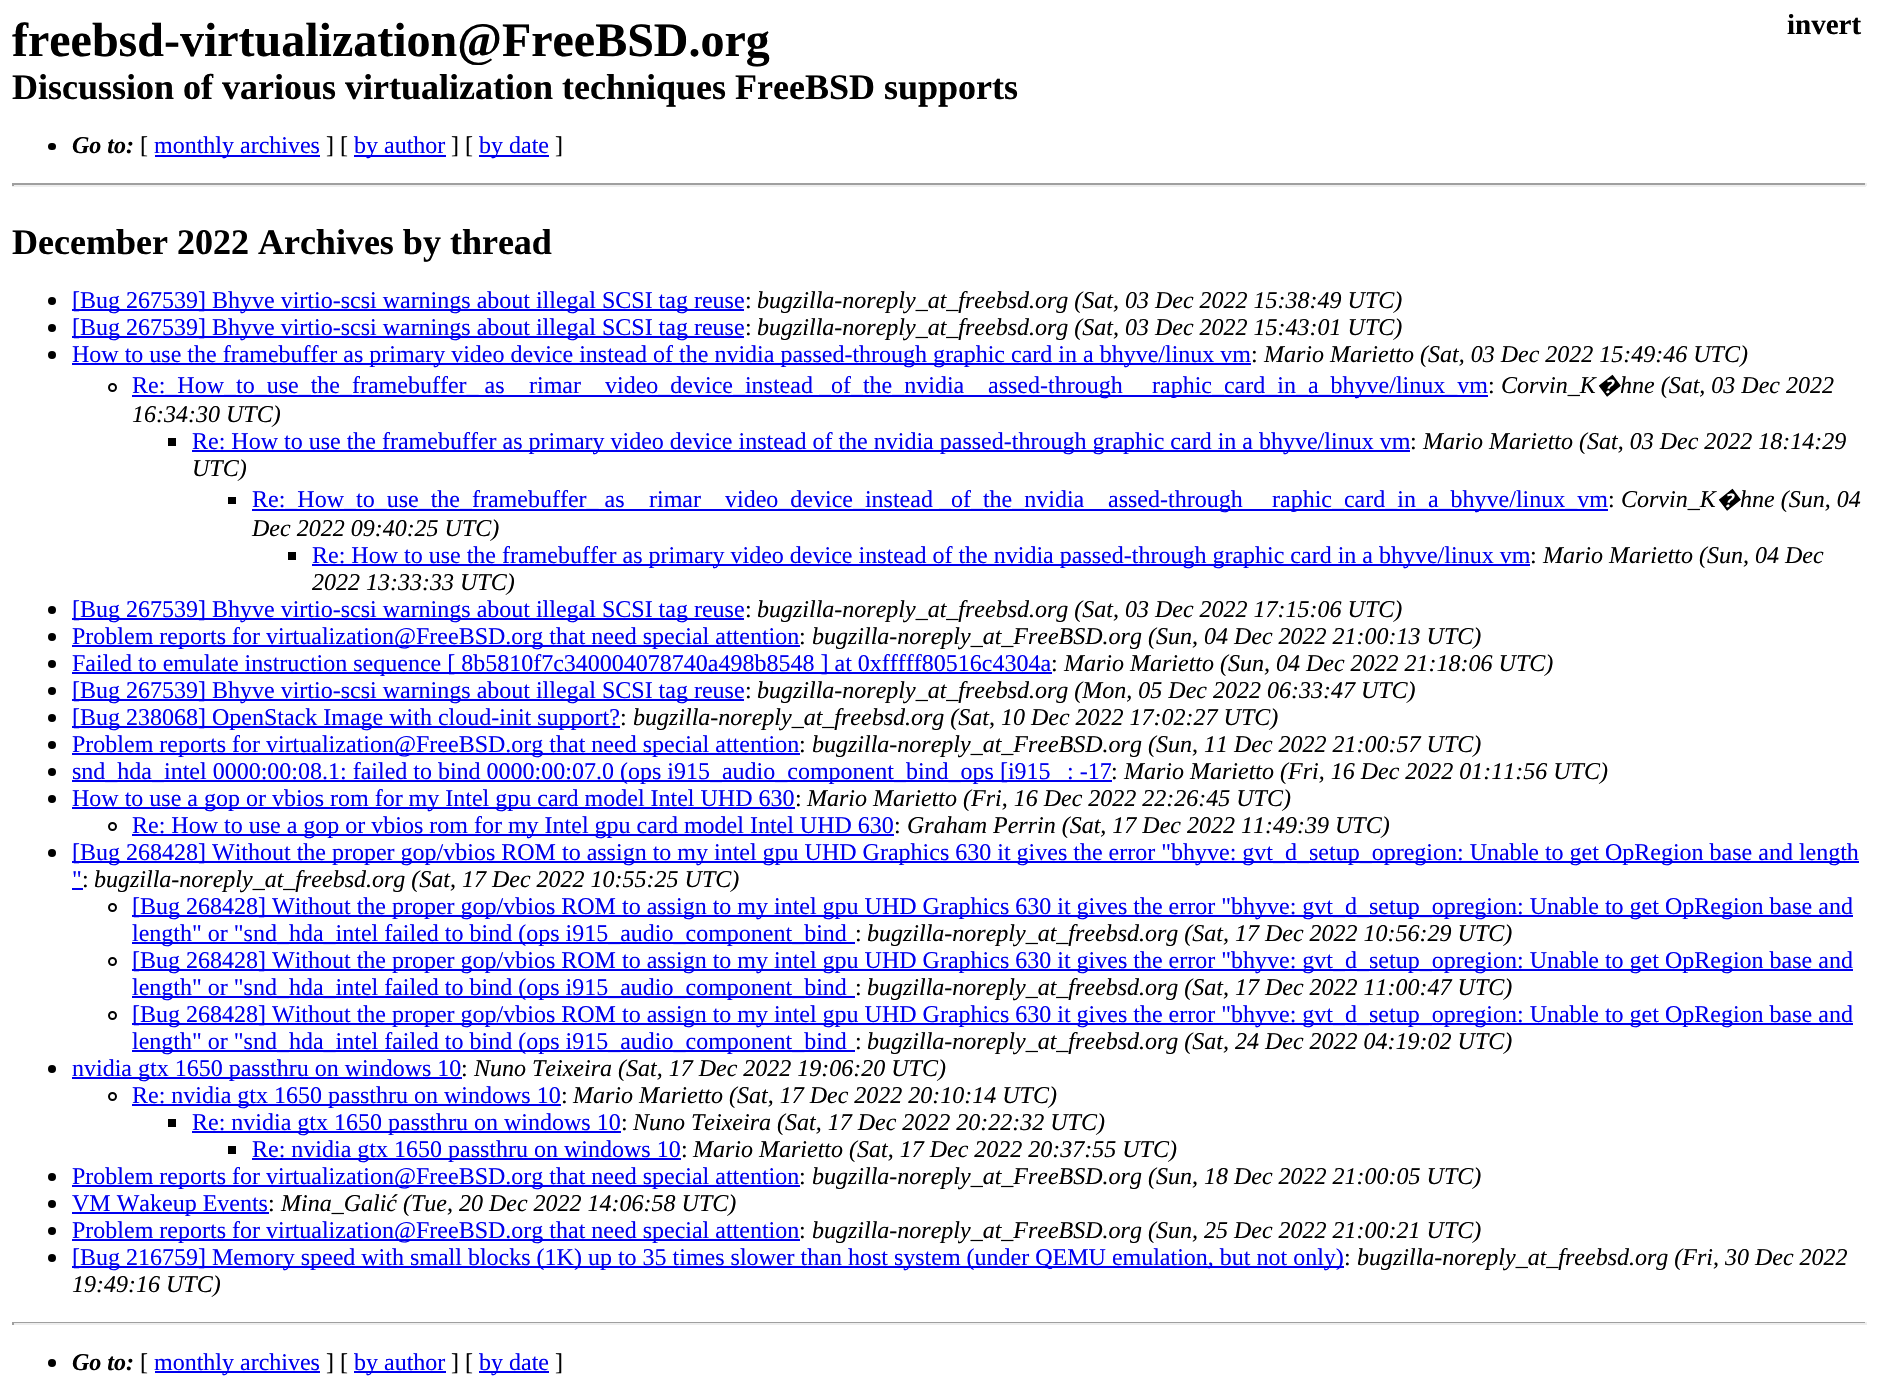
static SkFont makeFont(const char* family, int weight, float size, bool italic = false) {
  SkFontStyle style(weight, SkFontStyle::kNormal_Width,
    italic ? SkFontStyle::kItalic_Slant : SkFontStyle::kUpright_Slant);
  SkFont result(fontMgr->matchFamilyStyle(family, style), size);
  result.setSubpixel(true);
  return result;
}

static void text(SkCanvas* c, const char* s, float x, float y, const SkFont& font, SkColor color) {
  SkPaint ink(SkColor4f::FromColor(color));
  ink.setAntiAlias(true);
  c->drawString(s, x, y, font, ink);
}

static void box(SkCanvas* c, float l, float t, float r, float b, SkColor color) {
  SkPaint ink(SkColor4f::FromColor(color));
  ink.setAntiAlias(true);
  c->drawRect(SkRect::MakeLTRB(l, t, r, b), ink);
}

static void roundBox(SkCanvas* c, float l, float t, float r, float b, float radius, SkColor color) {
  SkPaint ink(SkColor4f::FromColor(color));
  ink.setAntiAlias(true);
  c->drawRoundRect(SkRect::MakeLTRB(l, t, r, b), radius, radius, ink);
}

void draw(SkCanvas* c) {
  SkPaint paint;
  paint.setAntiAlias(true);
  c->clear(0xffffffff);
  SkFont face1 = makeFont("Liberation Serif", 700, 48);
  text(c, "freebsd-virtualization@FreeBSD.org", 12, 56, face1, 0xff000000);
  SkFont face2 = makeFont("Liberation Serif", 700, 36);
  text(c, "Discussion of various virtualization techniques FreeBSD supports", 12, 99, face2, 0xff000000);
  SkFont face3 = makeFont("Liberation Serif", 700, 29);
  text(c, "invert", 1787, 34, face3, 0xff000000);
  roundBox(c, 48, 143, 56, 150, 3.5f, 0xff000000);
  SkFont face4 = makeFont("Liberation Serif", 700, 24, true);
  text(c, "Go to:", 72, 153, face4, 0xff000000);
  SkFont face5 = makeFont("Liberation Serif", 400, 24);
  text(c, "[", 140, 153, face5, 0xff000000);
  box(c, 155, 155, 320, 157, 0xff0000ee);
  text(c, "monthly archives", 154, 153, face5, 0xff0000ee);
  text(c, "] [", 326, 153, face5, 0xff000000);
  box(c, 354, 155, 446, 157, 0xff0000ee);
  text(c, "by author", 354, 153, face5, 0xff0000ee);
  text(c, "] [", 451, 153, face5, 0xff000000);
  box(c, 479, 155, 549, 157, 0xff0000ee);
  text(c, "by date", 479, 153, face5, 0xff0000ee);
  text(c, "]", 555, 153, face5, 0xff000000);
  box(c, 12, 183, 1866, 185, 0xff9f9f9f);
  box(c, 1865, 183, 1867, 186, 0xffeeeeee);
  box(c, 12, 185, 1866, 187, 0xffeeeeee);
  box(c, 12, 183, 14, 186, 0xff9f9f9f);
  text(c, "December 2022 Archives by thread", 12, 254, face2, 0xff000000);
  paint.setColor(0xff000000);
  c->drawCircle(52, 301, 4, paint);
  box(c, 72, 309, 744, 311, 0xff0000ee);
  text(c, "[Bug 267539] Bhyve virtio-scsi warnings about illegal SCSI tag reuse", 72, 308, face5, 0xff0000ee);
  text(c, ":", 745, 308, face5, 0xff000000);
  SkFont face6 = makeFont("Liberation Serif", 400, 24, true);
  text(c, "bugzilla-noreply_at_freebsd.org (Sat, 03 Dec 2022 15:38:49 UTC)", 757, 308, face6, 0xff000000);
  c->drawCircle(52, 328, 4, paint);
  box(c, 72, 336, 744, 338, 0xff0000ee);
  text(c, "[Bug 267539] Bhyve virtio-scsi warnings about illegal SCSI tag reuse", 72, 335, face5, 0xff0000ee);
  text(c, ":", 745, 335, face5, 0xff000000);
  text(c, "bugzilla-noreply_at_freebsd.org (Sat, 03 Dec 2022 15:43:01 UTC)", 757, 335, face6, 0xff000000);
  c->drawCircle(52, 355, 4, paint);
  box(c, 72, 363, 1251, 365, 0xff0000ee);
  text(c, "How to use the framebuffer as primary video device instead of the nvidia passed-through graphic card in a bhyve/linux vm", 72, 362, face5, 0xff0000ee);
  text(c, ":", 1251, 362, face5, 0xff000000);
  text(c, "Mario Marietto (Sat, 03 Dec 2022 15:49:46 UTC)", 1264, 362, face6, 0xff000000);
  paint.setStyle(SkPaint::kStroke_Style);
  paint.setStrokeWidth(2);
  c->drawCircle(112.5f, 387.5f, 3.5f, paint);
  box(c, 132, 395, 1488, 397, 0xff0000ee);
  text(c, "Re:_How_to_use_the_framebuffer_ as", 132, 393, face5, 0xff0000ee);
  text(c, "rimar", 529, 393, face5, 0xff0000ee);
  text(c, "video_device_instead _of_the_nvidia", 605, 393, face5, 0xff0000ee);
  text(c, "assed-through", 988, 393, face5, 0xff0000ee);
  text(c, "raphic_card_in_a_bhyve/linux_vm", 1152, 393, face5, 0xff0000ee);
  text(c, ":", 1488, 393, face5, 0xff000000);
  text(c, "Corvin_K", 1501, 393, face6, 0xff000000);
  SkFont face7 = makeFont("Noto Sans", 400, 24, true);
  text(c, "�", 1596, 393, face7, 0xff000000);
  text(c, "hne (Sat, 03 Dec 2022", 1620, 393, face6, 0xff000000);
  text(c, "16:34:30 UTC)", 132, 422, face6, 0xff000000);
  box(c, 168, 438, 176, 446, 0xff000000);
  box(c, 192, 450, 1410, 452, 0xff0000ee);
  text(c, "Re: How to use the framebuffer as primary video device instead of the nvidia passed-through graphic card in a bhyve/linux vm", 192, 449, face5, 0xff0000ee);
  text(c, ":", 1410, 449, face5, 0xff000000);
  text(c, "Mario Marietto (Sat, 03 Dec 2022 18:14:29", 1423, 449, face6, 0xff000000);
  text(c, "UTC)", 192, 476, face6, 0xff000000);
  box(c, 228, 497, 236, 504, 0xff000000);
  box(c, 252, 509, 1608, 511, 0xff0000ee);
  text(c, "Re:_How_to_use_the_framebuffer_ as", 252, 507, face5, 0xff0000ee);
  text(c, "rimar", 649, 507, face5, 0xff0000ee);
  text(c, "video_device_instead _of_the_nvidia", 725, 507, face5, 0xff0000ee);
  text(c, "assed-through", 1108, 507, face5, 0xff0000ee);
  text(c, "raphic_card_in_a_bhyve/linux_vm", 1272, 507, face5, 0xff0000ee);
  text(c, ":", 1608, 507, face5, 0xff000000);
  text(c, "Corvin_K", 1621, 507, face6, 0xff000000);
  text(c, "�", 1716, 507, face7, 0xff000000);
  text(c, "hne (Sun, 04", 1740, 507, face6, 0xff000000);
  text(c, "Dec 2022 09:40:25 UTC)", 252, 536, face6, 0xff000000);
  box(c, 288, 552, 296, 560, 0xff000000);
  box(c, 312, 564, 1530, 566, 0xff0000ee);
  text(c, "Re: How to use the framebuffer as primary video device instead of the nvidia passed-through graphic card in a bhyve/linux vm", 312, 563, face5, 0xff0000ee);
  text(c, ":", 1530, 563, face5, 0xff000000);
  text(c, "Mario Marietto (Sun, 04 Dec", 1543, 563, face6, 0xff000000);
  text(c, "2022 13:33:33 UTC)", 312, 590, face6, 0xff000000);
  paint.setStyle(SkPaint::kFill_Style);
  c->drawCircle(52, 610, 4, paint);
  box(c, 72, 618, 744, 620, 0xff0000ee);
  text(c, "[Bug 267539] Bhyve virtio-scsi warnings about illegal SCSI tag reuse", 72, 617, face5, 0xff0000ee);
  text(c, ":", 745, 617, face5, 0xff000000);
  text(c, "bugzilla-noreply_at_freebsd.org (Sat, 03 Dec 2022 17:15:06 UTC)", 757, 617, face6, 0xff000000);
  c->drawCircle(52, 637, 4, paint);
  box(c, 72, 645, 800, 647, 0xff0000ee);
  text(c, "Problem reports for virtualization@FreeBSD.org that need special attention", 72, 644, face5, 0xff0000ee);
  text(c, ":", 799, 644, face5, 0xff000000);
  text(c, "bugzilla-noreply_at_FreeBSD.org (Sun, 04 Dec 2022 21:00:13 UTC)", 812, 644, face6, 0xff000000);
  c->drawCircle(52, 664, 4, paint);
  box(c, 72, 672, 1052, 674, 0xff0000ee);
  text(c, "Failed to emulate instruction sequence [ 8b5810f7c340004078740a498b8548 ] at 0xfffff80516c4304a", 72, 671, face5, 0xff0000ee);
  text(c, ":", 1051, 671, face5, 0xff000000);
  text(c, "Mario Marietto (Sun, 04 Dec 2022 21:18:06 UTC)", 1064, 671, face6, 0xff000000);
  c->drawCircle(52, 691, 4, paint);
  box(c, 72, 699, 744, 701, 0xff0000ee);
  text(c, "[Bug 267539] Bhyve virtio-scsi warnings about illegal SCSI tag reuse", 72, 698, face5, 0xff0000ee);
  text(c, ":", 745, 698, face5, 0xff000000);
  text(c, "bugzilla-noreply_at_freebsd.org (Mon, 05 Dec 2022 06:33:47 UTC)", 757, 698, face6, 0xff000000);
  c->drawCircle(52, 718, 4, paint);
  box(c, 72, 726, 620, 728, 0xff0000ee);
  text(c, "[Bug 238068] OpenStack Image with cloud-init support?", 72, 725, face5, 0xff0000ee);
  text(c, ":", 620, 725, face5, 0xff000000);
  text(c, "bugzilla-noreply_at_freebsd.org (Sat, 10 Dec 2022 17:02:27 UTC)", 633, 725, face6, 0xff000000);
  c->drawCircle(52, 745, 4, paint);
  box(c, 72, 753, 800, 755, 0xff0000ee);
  text(c, "Problem reports for virtualization@FreeBSD.org that need special attention", 72, 752, face5, 0xff0000ee);
  text(c, ":", 799, 752, face5, 0xff000000);
  text(c, "bugzilla-noreply_at_FreeBSD.org (Sun, 11 Dec 2022 21:00:57 UTC)", 812, 752, face6, 0xff000000);
  c->drawCircle(52, 772, 4, paint);
  box(c, 72, 780, 1112, 782, 0xff0000ee);
  text(c, "snd_hda_intel 0000:00:08.1: failed to bind 0000:00:07.0 (ops i915_audio_component_bind_ops [i915", 72, 779, face5, 0xff0000ee);
  text(c, ": -17", 1067, 779, face5, 0xff0000ee);
  text(c, ":", 1111, 779, face5, 0xff000000);
  text(c, "Mario Marietto (Fri, 16 Dec 2022 01:11:56 UTC)", 1124, 779, face6, 0xff000000);
  c->drawCircle(52, 799, 4, paint);
  box(c, 72, 807, 795, 809, 0xff0000ee);
  text(c, "How to use a gop or vbios rom for my Intel gpu card model Intel UHD 630", 72, 806, face5, 0xff0000ee);
  text(c, ":", 795, 806, face5, 0xff000000);
  text(c, "Mario Marietto (Fri, 16 Dec 2022 22:26:45 UTC)", 807, 806, face6, 0xff000000);
  paint.setStyle(SkPaint::kStroke_Style);
  c->drawCircle(112.5f, 826.5f, 3.5f, paint);
  box(c, 132, 834, 894, 836, 0xff0000ee);
  text(c, "Re: How to use a gop or vbios rom for my Intel gpu card model Intel UHD 630", 132, 833, face5, 0xff0000ee);
  text(c, ":", 894, 833, face5, 0xff000000);
  text(c, "Graham Perrin (Sat, 17 Dec 2022 11:49:39 UTC)", 907, 833, face6, 0xff000000);
  paint.setStyle(SkPaint::kFill_Style);
  c->drawCircle(52, 853, 4, paint);
  box(c, 72, 861, 1859, 863, 0xff0000ee);
  text(c, "[Bug 268428] Without the proper gop/vbios ROM to assign to my intel gpu UHD Graphics 630 it gives the error \"bhyve: gvt_d_setup_opregion: Unable to get OpRegion base and length", 72, 860, face5, 0xff0000ee);
  text(c, "\"", 72, 887, face5, 0xff0000ee);
  box(c, 72, 888, 83, 890, 0xff0000ee);
  text(c, "bugzilla-noreply_at_freebsd.org (Sat, 17 Dec 2022 10:55:25 UTC)", 94, 887, face6, 0xff000000);
  text(c, ":", 82, 887, face5, 0xff000000);
  paint.setStyle(SkPaint::kStroke_Style);
  c->drawCircle(112.5f, 907.5f, 3.5f, paint);
  box(c, 132, 915, 1853, 917, 0xff0000ee);
  text(c, "[Bug 268428] Without the proper gop/vbios ROM to assign to my intel gpu UHD Graphics 630 it gives the error \"bhyve: gvt_d_setup_opregion: Unable to get OpRegion base and", 132, 914, face5, 0xff0000ee);
  box(c, 132, 942, 855, 944, 0xff0000ee);
  text(c, "length\" or \"snd_hda_intel failed to bind (ops i915_audio_component_bind", 132, 941, face5, 0xff0000ee);
  text(c, ":", 855, 941, face5, 0xff000000);
  text(c, "bugzilla-noreply_at_freebsd.org (Sat, 17 Dec 2022 10:56:29 UTC)", 867, 941, face6, 0xff000000);
  c->drawCircle(112.5f, 961.5f, 3.5f, paint);
  box(c, 132, 969, 1853, 971, 0xff0000ee);
  text(c, "[Bug 268428] Without the proper gop/vbios ROM to assign to my intel gpu UHD Graphics 630 it gives the error \"bhyve: gvt_d_setup_opregion: Unable to get OpRegion base and", 132, 968, face5, 0xff0000ee);
  box(c, 132, 996, 855, 998, 0xff0000ee);
  text(c, "length\" or \"snd_hda_intel failed to bind (ops i915_audio_component_bind", 132, 995, face5, 0xff0000ee);
  text(c, ":", 855, 995, face5, 0xff000000);
  text(c, "bugzilla-noreply_at_freebsd.org (Sat, 17 Dec 2022 11:00:47 UTC)", 867, 995, face6, 0xff000000);
  c->drawCircle(112.5f, 1015.5f, 3.5f, paint);
  box(c, 132, 1023, 1853, 1025, 0xff0000ee);
  text(c, "[Bug 268428] Without the proper gop/vbios ROM to assign to my intel gpu UHD Graphics 630 it gives the error \"bhyve: gvt_d_setup_opregion: Unable to get OpRegion base and", 132, 1022, face5, 0xff0000ee);
  box(c, 132, 1050, 855, 1052, 0xff0000ee);
  text(c, "length\" or \"snd_hda_intel failed to bind (ops i915_audio_component_bind", 132, 1049, face5, 0xff0000ee);
  text(c, ":", 855, 1049, face5, 0xff000000);
  text(c, "bugzilla-noreply_at_freebsd.org (Sat, 24 Dec 2022 04:19:02 UTC)", 867, 1049, face6, 0xff000000);
  paint.setStyle(SkPaint::kFill_Style);
  c->drawCircle(52, 1069, 4, paint);
  box(c, 72, 1077, 462, 1079, 0xff0000ee);
  text(c, "nvidia gtx 1650 passthru on windows 10", 72, 1076, face5, 0xff0000ee);
  text(c, ":", 461, 1076, face5, 0xff000000);
  text(c, "Nuno Teixeira (Sat, 17 Dec 2022 19:06:20 UTC)", 474, 1076, face6, 0xff000000);
  paint.setStyle(SkPaint::kStroke_Style);
  c->drawCircle(112.5f, 1096.5f, 3.5f, paint);
  box(c, 132, 1104, 561, 1106, 0xff0000ee);
  text(c, "Re: nvidia gtx 1650 passthru on windows 10", 132, 1103, face5, 0xff0000ee);
  text(c, ":", 561, 1103, face5, 0xff000000);
  text(c, "Mario Marietto (Sat, 17 Dec 2022 20:10:14 UTC)", 573, 1103, face6, 0xff000000);
  box(c, 168, 1119, 176, 1127, 0xff000000);
  box(c, 192, 1131, 621, 1133, 0xff0000ee);
  text(c, "Re: nvidia gtx 1650 passthru on windows 10", 192, 1130, face5, 0xff0000ee);
  text(c, ":", 621, 1130, face5, 0xff000000);
  text(c, "Nuno Teixeira (Sat, 17 Dec 2022 20:22:32 UTC)", 633, 1130, face6, 0xff000000);
  box(c, 228, 1146, 236, 1154, 0xff000000);
  box(c, 252, 1158, 681, 1160, 0xff0000ee);
  text(c, "Re: nvidia gtx 1650 passthru on windows 10", 252, 1157, face5, 0xff0000ee);
  text(c, ":", 681, 1157, face5, 0xff000000);
  text(c, "Mario Marietto (Sat, 17 Dec 2022 20:37:55 UTC)", 693, 1157, face6, 0xff000000);
  paint.setStyle(SkPaint::kFill_Style);
  c->drawCircle(52, 1177, 4, paint);
  box(c, 72, 1185, 800, 1187, 0xff0000ee);
  text(c, "Problem reports for virtualization@FreeBSD.org that need special attention", 72, 1184, face5, 0xff0000ee);
  text(c, ":", 799, 1184, face5, 0xff000000);
  text(c, "bugzilla-noreply_at_FreeBSD.org (Sun, 18 Dec 2022 21:00:05 UTC)", 812, 1184, face6, 0xff000000);
  c->drawCircle(52, 1204, 4, paint);
  box(c, 72, 1212, 269, 1214, 0xff0000ee);
  text(c, "VM Wakeup Events", 72, 1211, face5, 0xff0000ee);
  text(c, ":", 268, 1211, face5, 0xff000000);
  text(c, "Mina_Galić (Tue, 20 Dec 2022 14:06:58 UTC)", 281, 1211, face6, 0xff000000);
  c->drawCircle(52, 1231, 4, paint);
  box(c, 72, 1239, 800, 1241, 0xff0000ee);
  text(c, "Problem reports for virtualization@FreeBSD.org that need special attention", 72, 1238, face5, 0xff0000ee);
  text(c, ":", 799, 1238, face5, 0xff000000);
  text(c, "bugzilla-noreply_at_FreeBSD.org (Sun, 25 Dec 2022 21:00:21 UTC)", 812, 1238, face6, 0xff000000);
  c->drawCircle(52, 1258, 4, paint);
  box(c, 72, 1266, 1344, 1268, 0xff0000ee);
  text(c, "[Bug 216759] Memory speed with small blocks (1K) up to 35 times slower than host system (under QEMU emulation, but not only)", 72, 1265, face5, 0xff0000ee);
  text(c, ":", 1344, 1265, face5, 0xff000000);
  text(c, "bugzilla-noreply_at_freebsd.org (Fri, 30 Dec 2022", 1357, 1265, face6, 0xff000000);
  text(c, "19:49:16 UTC)", 72, 1292, face6, 0xff000000);
  box(c, 12, 1322, 1866, 1323, 0xff9f9f9f);
  box(c, 1865, 1322, 1867, 1325, 0xffeeeeee);
  box(c, 12, 1323, 1866, 1325, 0xffeeeeee);
  box(c, 12, 1322, 14, 1325, 0xff9f9f9f);
  c->drawCircle(52, 1363, 4, paint);
  text(c, "Go to:", 72, 1370, face4, 0xff000000);
  text(c, "[", 140, 1370, face5, 0xff000000);
  box(c, 155, 1371, 320, 1373, 0xff0000ee);
  text(c, "monthly archives", 154, 1370, face5, 0xff0000ee);
  text(c, "] [", 326, 1370, face5, 0xff000000);
  box(c, 354, 1371, 446, 1373, 0xff0000ee);
  text(c, "by author", 354, 1370, face5, 0xff0000ee);
  text(c, "] [", 451, 1370, face5, 0xff000000);
  box(c, 479, 1371, 549, 1373, 0xff0000ee);
  text(c, "by date", 479, 1370, face5, 0xff0000ee);
  text(c, "]", 555, 1370, face5, 0xff000000);
}
